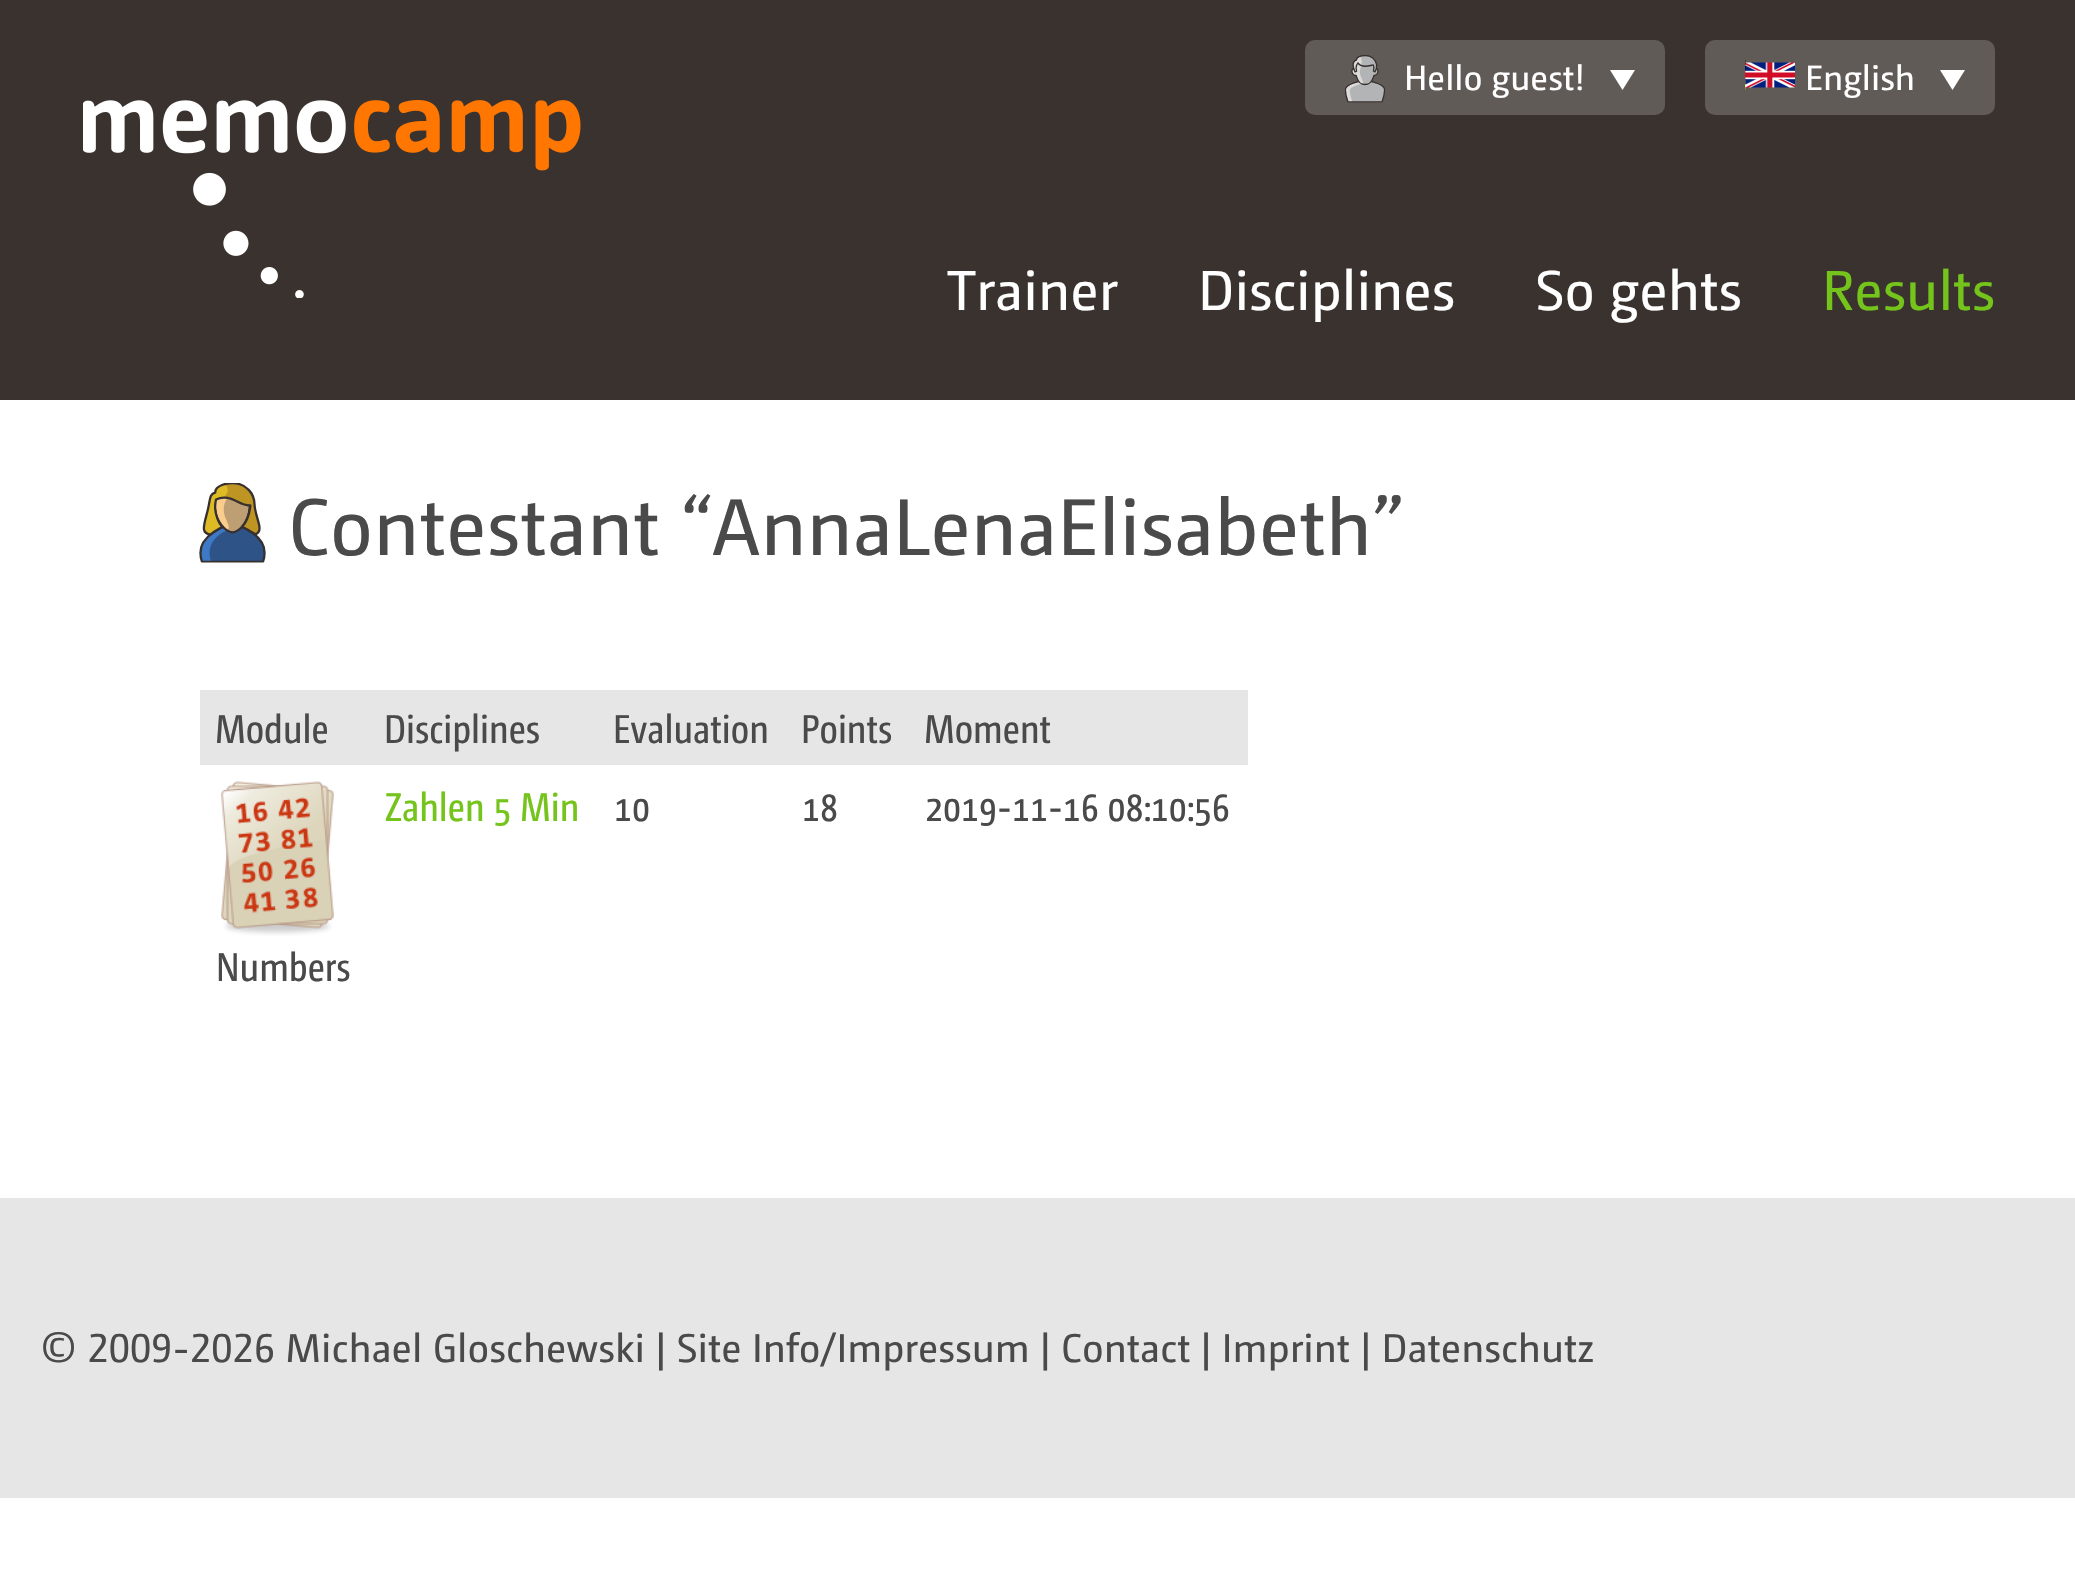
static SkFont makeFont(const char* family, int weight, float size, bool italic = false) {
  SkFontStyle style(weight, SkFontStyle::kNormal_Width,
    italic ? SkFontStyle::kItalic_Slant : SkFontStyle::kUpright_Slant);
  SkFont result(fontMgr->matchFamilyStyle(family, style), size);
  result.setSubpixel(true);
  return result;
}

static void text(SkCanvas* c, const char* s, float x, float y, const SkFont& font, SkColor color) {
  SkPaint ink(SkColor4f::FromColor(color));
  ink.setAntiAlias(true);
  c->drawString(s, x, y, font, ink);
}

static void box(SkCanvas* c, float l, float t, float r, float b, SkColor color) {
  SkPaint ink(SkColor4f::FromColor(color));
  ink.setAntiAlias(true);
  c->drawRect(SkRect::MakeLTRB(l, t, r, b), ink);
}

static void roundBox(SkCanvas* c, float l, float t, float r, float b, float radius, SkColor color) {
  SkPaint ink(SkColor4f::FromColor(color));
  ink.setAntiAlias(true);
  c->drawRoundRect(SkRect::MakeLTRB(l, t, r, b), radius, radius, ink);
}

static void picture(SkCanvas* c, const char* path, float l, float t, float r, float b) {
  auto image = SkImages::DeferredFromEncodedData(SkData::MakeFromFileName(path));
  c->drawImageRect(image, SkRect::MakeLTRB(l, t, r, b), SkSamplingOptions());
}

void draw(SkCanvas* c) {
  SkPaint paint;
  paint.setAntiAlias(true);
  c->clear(0xffffffff);
  box(c, 0, 0, 2075, 400, 0xff3a322f);
  picture(c, "img_01.png", 83, 100, 581, 298);
  roundBox(c, 1305, 40, 1665, 115, 10, 0xff615b58);
  picture(c, "img_02.png", 1345, 55, 1385, 103);
  SkFont face1 = makeFont("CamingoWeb", 400, 35);
  text(c, "Hello guest!", 1404, 90, face1, 0xffffffff);
  paint.setColor(0xffffffff);
  c->drawPath(SkPathBuilder().moveTo(1610, 70).lineTo(1635, 70).lineTo(1622.5f, 90).close().detach(), paint);
  roundBox(c, 1705, 40, 1995, 115, 10, 0xff615b58);
  picture(c, "img_03.png", 1745, 60, 1795, 90);
  text(c, "English", 1805, 90, face1, 0xffffffff);
  c->drawPath(SkPathBuilder().moveTo(1940, 70).lineTo(1965, 70).lineTo(1952.5f, 90).close().detach(), paint);
  SkFont face2 = makeFont("CamingoWeb", 400, 56);
  text(c, "Trainer", 947, 310, face2, 0xffffffff);
  text(c, "Disciplines", 1198, 310, face2, 0xffffffff);
  text(c, "So gehts", 1535, 310, face2, 0xffffffff);
  text(c, "Results", 1822, 310, face2, 0xff74c41c);
  picture(c, "img_04.png", 199, 483, 266, 563);
  SkFont face3 = makeFont("CamingoWeb", 400, 80);
  text(c, "Contestant “AnnaLenaElisabeth”", 288, 555, face3, 0xff4a4a4a);
  box(c, 200, 690, 1248, 765, 0xffe6e6e6);
  SkFont face4 = makeFont("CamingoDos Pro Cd", 400, 40);
  text(c, "Module", 215, 743, face4, 0xff4a4a4a);
  text(c, "Disciplines", 384, 743, face4, 0xff4a4a4a);
  text(c, "Evaluation", 613, 743, face4, 0xff4a4a4a);
  text(c, "Points", 801, 743, face4, 0xff4a4a4a);
  text(c, "Moment", 924, 743, face4, 0xff4a4a4a);
  text(c, "Zahlen 5 Min", 385, 821, face4, 0xff74c41c);
  text(c, "10", 614, 821, face4, 0xff4a4a4a);
  text(c, "18", 802, 821, face4, 0xff4a4a4a);
  text(c, "2019-11-16 08:10:56", 925, 821, face4, 0xff4a4a4a);
  picture(c, "img_05.png", 221, 781, 334, 936);
  text(c, "Numbers", 216, 981, face4, 0xff4a4a4a);
  box(c, 0, 1198, 2075, 1498, 0xffe6e6e6);
  SkFont face5 = makeFont("CamingoWeb", 400, 40);
  text(c, "© 2009-2026 Michael Gloschewski | Site Info/Impressum | Contact | Imprint | Datenschutz", 40, 1362, face5, 0xff4a4a4a);
}
